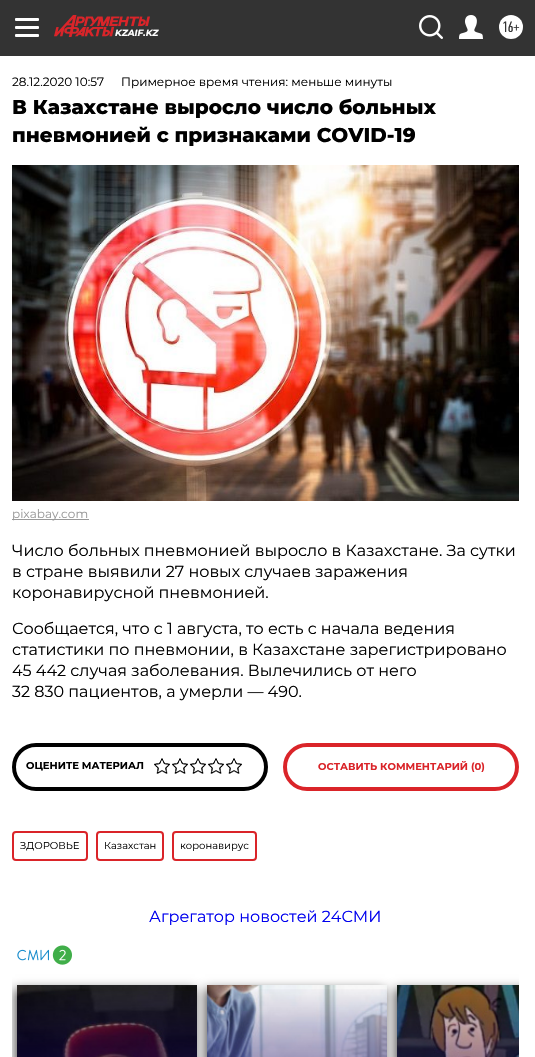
static SkFont makeFont(const char* family, int weight, float size, bool italic = false) {
  SkFontStyle style(weight, SkFontStyle::kNormal_Width,
    italic ? SkFontStyle::kItalic_Slant : SkFontStyle::kUpright_Slant);
  SkFont result(fontMgr->matchFamilyStyle(family, style), size);
  result.setSubpixel(true);
  return result;
}

static void text(SkCanvas* c, const char* s, float x, float y, const SkFont& font, SkColor color) {
  SkPaint ink(SkColor4f::FromColor(color));
  ink.setAntiAlias(true);
  c->drawString(s, x, y, font, ink);
}

static void box(SkCanvas* c, float l, float t, float r, float b, SkColor color) {
  SkPaint ink(SkColor4f::FromColor(color));
  ink.setAntiAlias(true);
  c->drawRect(SkRect::MakeLTRB(l, t, r, b), ink);
}

static void roundBox(SkCanvas* c, float l, float t, float r, float b, float radius, SkColor color) {
  SkPaint ink(SkColor4f::FromColor(color));
  ink.setAntiAlias(true);
  c->drawRoundRect(SkRect::MakeLTRB(l, t, r, b), radius, radius, ink);
}

static void picture(SkCanvas* c, const char* path, float l, float t, float r, float b) {
  auto image = SkImages::DeferredFromEncodedData(SkData::MakeFromFileName(path));
  c->drawImageRect(image, SkRect::MakeLTRB(l, t, r, b), SkSamplingOptions());
}

void draw(SkCanvas* c) {
  SkPaint paint;
  paint.setAntiAlias(true);
  c->clear(0xffffffff);
  box(c, 0, 0, 535, 56, 0xff333333);
  roundBox(c, 15, 18, 39, 21, 1, 0xffffffff);
  roundBox(c, 15, 26, 39, 29, 1, 0xffffffff);
  roundBox(c, 15, 34, 39, 37, 1, 0xffffffff);
  picture(c, "img_01.png", 54, 15, 150, 37);
  SkFont face1 = makeFont("Montserrat", 700, 9, true);
  text(c, "KZAIF.KZ", 115, 36, face1, 0xffffffff);
  picture(c, "img_02.png", 419, 15, 443, 39);
  picture(c, "img_03.png", 459, 15, 483, 39);
  paint.setColor(0xffffffff);
  c->drawCircle(511, 27, 12, paint);
  SkFont face2 = makeFont("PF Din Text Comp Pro", 400, 15);
  text(c, "16+", 502, 32, face2, 0xff333333);
  SkFont face3 = makeFont("Montserrat", 400, 12);
  text(c, "28.12.2020 10:57", 12, 86, face3, 0xff000000);
  text(c, "Примерное время чтения: меньше минуты", 121, 86, face3, 0xff000000);
  SkFont face4 = makeFont("Montserrat", 800, 20);
  text(c, "В Казахстане выросло число больных", 12, 114, face4, 0xff000000);
  text(c, "пневмонией с признаками COVID-19", 12, 142, face4, 0xff000000);
  picture(c, "img_04.png", 12, 165, 519, 501);
  box(c, 12, 519, 89, 520, 0xff999999);
  text(c, "pixabay.com", 12, 518, face3, 0xff999999);
  SkFont face5 = makeFont("Montserrat", 400, 16);
  text(c, "Число больных пневмонией выросло в Казахстане. За сутки", 12, 556, face5, 0xff000000);
  text(c, "в стране выявили 27 новых случаев заражения", 12, 577, face5, 0xff000000);
  text(c, "коронавирусной пневмонией.", 12, 598, face5, 0xff000000);
  text(c, "Сообщается, что с 1 августа, то есть с начала ведения", 12, 634, face5, 0xff000000);
  text(c, "статистики по пневмонии, в Казахстане зарегистрировано", 12, 655, face5, 0xff000000);
  text(c, "45 442 случая заболевания. Вылечились от него", 12, 676, face5, 0xff000000);
  text(c, "32 830 пациентов, а умерли — 490.", 12, 697, face5, 0xff000000);
  paint.setStyle(SkPaint::kStroke_Style);
  paint.setStrokeWidth(4);
  paint.setColor(0xff000000);
  c->drawRoundRect(SkRect::MakeLTRB(14, 745, 266, 789), 22, 22, paint);
  SkFont face6 = makeFont("Montserrat", 700, 10);
  text(c, "ОЦЕНИТЕ МАТЕРИАЛ", 26, 769, face6, 0xff000000);
  picture(c, "img_05.png", 154, 758, 170, 774);
  picture(c, "img_05.png", 172, 758, 188, 774);
  picture(c, "img_05.png", 190, 758, 206, 774);
  picture(c, "img_05.png", 208, 758, 224, 774);
  picture(c, "img_05.png", 226, 758, 242, 774);
  paint.setColor(0xffda2429);
  c->drawRoundRect(SkRect::MakeLTRB(285, 745, 517, 789), 22, 22, paint);
  text(c, "ОСТАВИТЬ КОММЕНТАРИЙ (0)", 318, 770, face6, 0xffda2429);
  paint.setStrokeWidth(2);
  c->drawRoundRect(SkRect::MakeLTRB(13, 832, 87, 860), 3, 3, paint);
  SkFont face7 = makeFont("Montserrat", 400, 10);
  text(c, "ЗДОРОВЬЕ", 20, 849, face7, 0xff000000);
  c->drawRoundRect(SkRect::MakeLTRB(97, 832, 163, 860), 3, 3, paint);
  text(c, "Казахстан", 104, 849, face7, 0xff000000);
  c->drawRoundRect(SkRect::MakeLTRB(173, 832, 256, 860), 3, 3, paint);
  text(c, "коронавирус", 180, 849, face7, 0xff000000);
  text(c, "Агрегатор новостей 24СМИ", 149, 922, face5, 0xff0000ee);
  picture(c, "img_06.png", 17, 945, 72, 965);
  c->save();
  c->clipRect(SkRect::MakeLTRB(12, 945, 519, 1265));
  paint.setStyle(SkPaint::kFill_Style);
  paint.setColor(0xff565454);
  paint.setMaskFilter(SkMaskFilter::MakeBlur(kNormal_SkBlurStyle, 5));
  c->drawRect(SkRect::MakeLTRB(15, 989, 195, 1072), paint);
  paint.setMaskFilter(nullptr);
  c->restore();
  picture(c, "img_07.png", 17, 985, 197, 1057);
  paint.setMaskFilter(SkMaskFilter::MakeBlur(kNormal_SkBlurStyle, 5));
  c->drawRect(SkRect::MakeLTRB(205, 989, 385, 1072), paint);
  paint.setMaskFilter(nullptr);
  {
    const SkColor colors[] = {0xff1e0d64, 0x001e0d64};
    const float stops[] = {0.3f, 1};
    const SkPoint ends[] = {{107, 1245}, {107, 985}};
    paint.setShader(SkGradientShader::MakeLinear(ends, colors, stops, 2, SkTileMode::kClamp));
    paint.setAlpha(255);
  }
  c->drawRect(SkRect::MakeLTRB(17, 991, 197, 1057), paint);
  picture(c, "img_08.png", 207, 985, 387, 1057);
  c->save();
  c->clipRect(SkRect::MakeLTRB(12, 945, 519, 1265));
  paint.setShader(nullptr);
  paint.setColor(0xff565454);
  paint.setMaskFilter(SkMaskFilter::MakeBlur(kNormal_SkBlurStyle, 5));
  c->drawRect(SkRect::MakeLTRB(395, 989, 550, 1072), paint);
  paint.setMaskFilter(nullptr);
  c->restore();
  {
    const SkColor colors[] = {0xff1e0d64, 0x001e0d64};
    const float stops[] = {0.3f, 1};
    const SkPoint ends[] = {{297, 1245}, {297, 985}};
    paint.setShader(SkGradientShader::MakeLinear(ends, colors, stops, 2, SkTileMode::kClamp));
    paint.setAlpha(255);
  }
  c->drawRect(SkRect::MakeLTRB(207, 989, 387, 1057), paint);
  picture(c, "img_09.png", 397, 985, 519, 1057);
}
